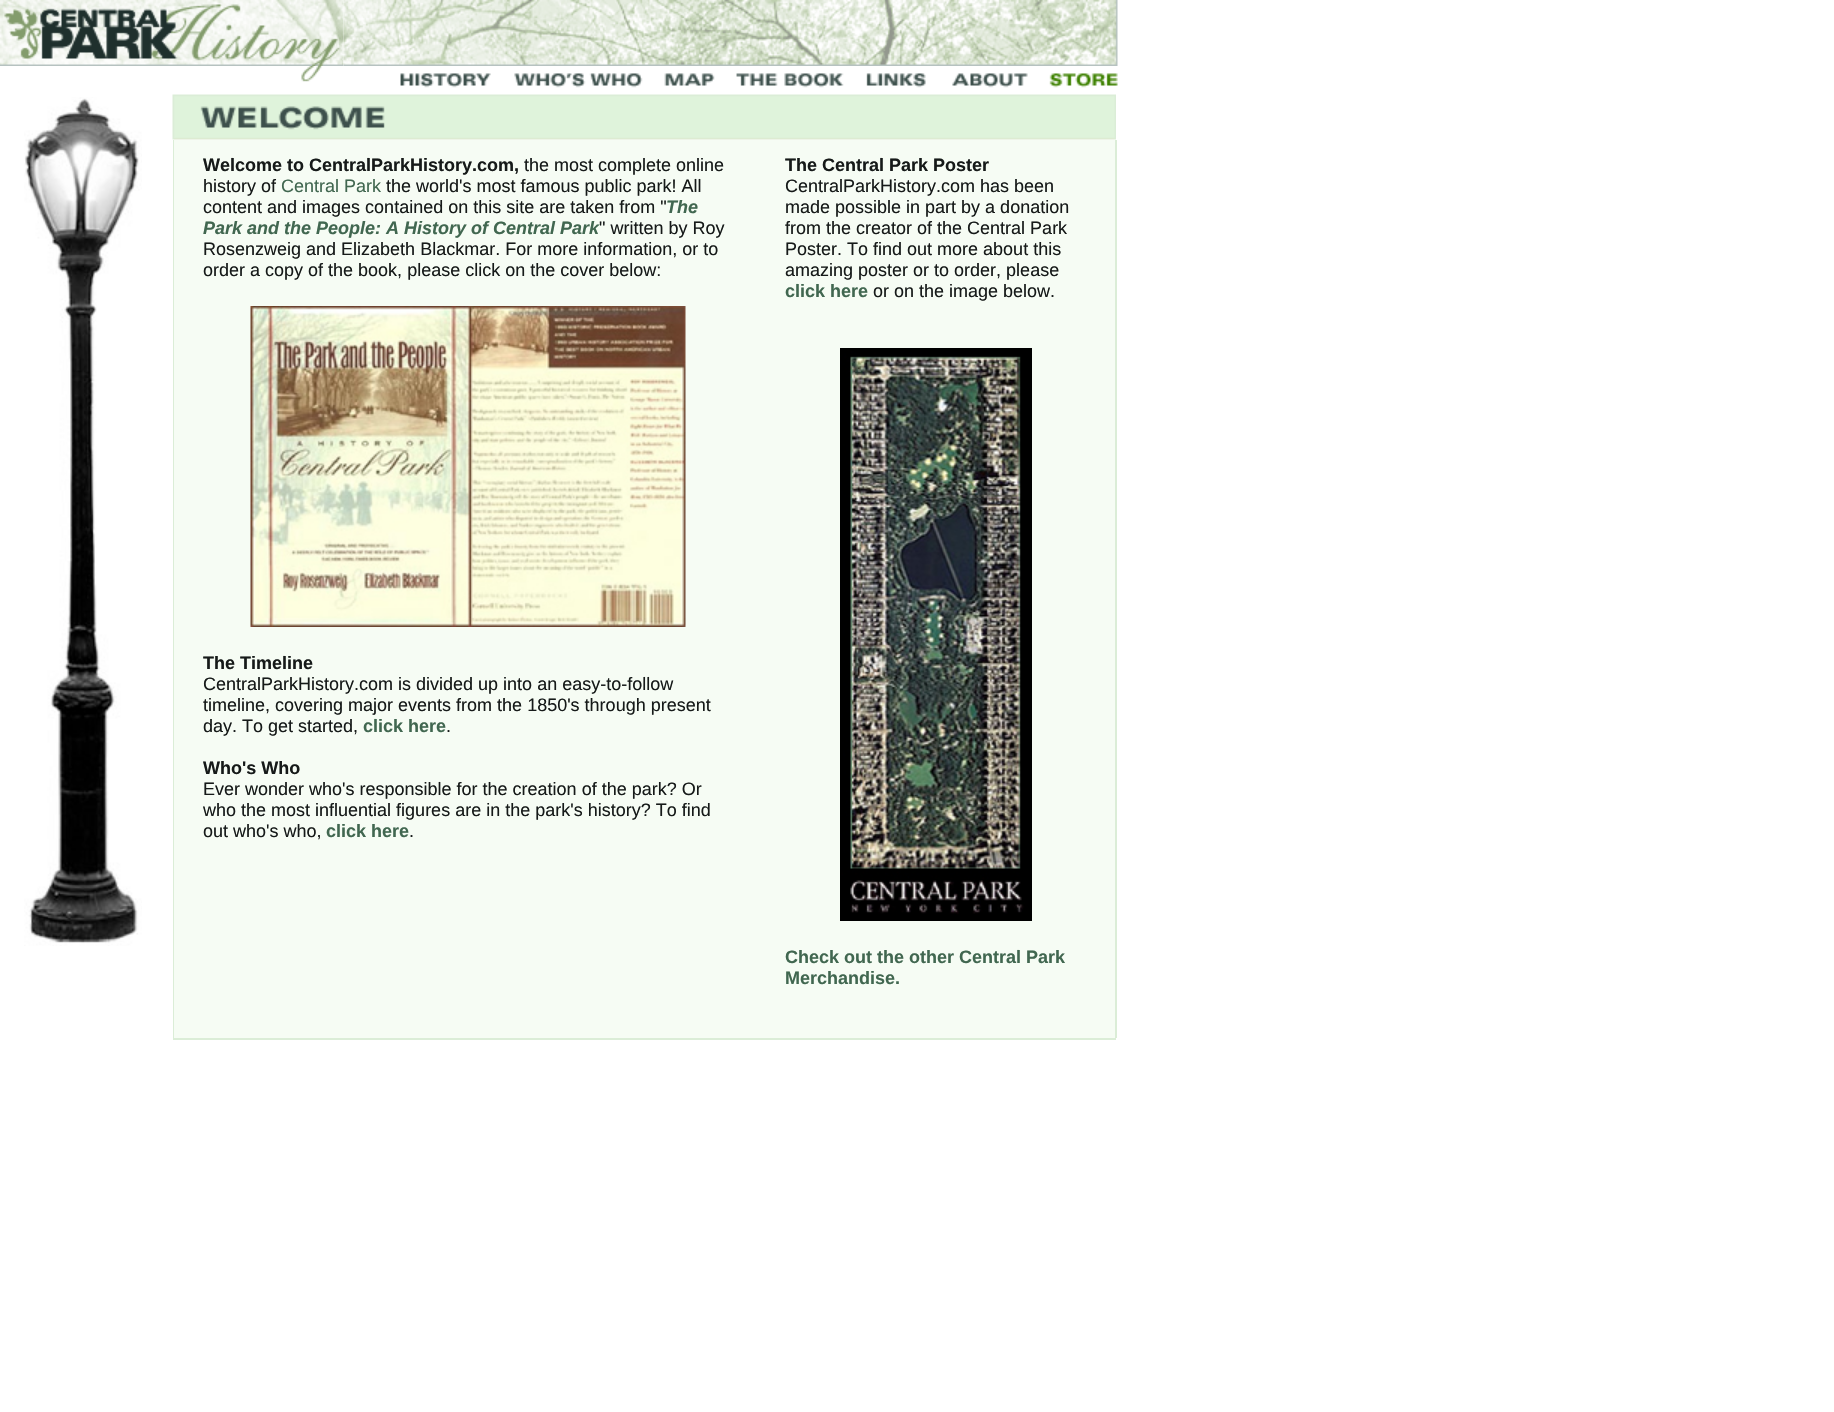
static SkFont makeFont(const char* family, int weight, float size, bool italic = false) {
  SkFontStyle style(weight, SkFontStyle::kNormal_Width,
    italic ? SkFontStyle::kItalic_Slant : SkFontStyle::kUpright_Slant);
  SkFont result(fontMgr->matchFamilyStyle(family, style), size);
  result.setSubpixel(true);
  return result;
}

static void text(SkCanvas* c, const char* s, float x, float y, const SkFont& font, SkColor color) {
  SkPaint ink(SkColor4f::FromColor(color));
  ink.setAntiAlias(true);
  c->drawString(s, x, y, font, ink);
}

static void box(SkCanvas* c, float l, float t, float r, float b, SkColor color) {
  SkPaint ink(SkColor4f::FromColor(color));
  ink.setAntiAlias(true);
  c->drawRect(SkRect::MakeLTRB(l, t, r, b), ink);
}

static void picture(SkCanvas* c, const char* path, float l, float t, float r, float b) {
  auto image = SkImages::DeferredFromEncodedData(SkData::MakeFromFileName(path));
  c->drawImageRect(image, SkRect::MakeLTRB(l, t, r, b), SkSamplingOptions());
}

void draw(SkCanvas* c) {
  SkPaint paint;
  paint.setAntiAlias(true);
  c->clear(0xffffffff);
  picture(c, "img_01.png", 0, 0, 344, 66);
  picture(c, "img_02.png", 343, 0, 1118, 66);
  picture(c, "img_03.png", 301, 66, 322, 82);
  picture(c, "img_04.png", 400, 73, 491, 88);
  picture(c, "img_05.png", 514, 73, 643, 88);
  picture(c, "img_06.png", 664, 73, 715, 86);
  picture(c, "img_07.png", 736, 73, 844, 88);
  picture(c, "img_08.png", 866, 73, 926, 88);
  picture(c, "img_09.png", 952, 73, 1028, 88);
  picture(c, "img_10.png", 1049, 73, 1118, 88);
  picture(c, "img_11.png", 24, 97, 142, 946);
  picture(c, "img_12.png", 172, 94, 1116, 140);
  box(c, 173, 140, 174, 1038, 0xffdbedd7);
  box(c, 174, 140, 1115, 1038, 0xfff6fcf4);
  box(c, 1115, 140, 1117, 1038, 0xffdbedd7);
  SkFont face1 = makeFont("Liberation Sans", 700, 18);
  text(c, "Welcome to CentralParkHistory.com,", 203, 171, face1, 0xff161a19);
  SkFont face2 = makeFont("Liberation Sans", 400, 18);
  text(c, "the most complete online", 524, 171, face2, 0xff161a19);
  text(c, "history of", 203, 192, face2, 0xff161a19);
  text(c, "Central Park", 281, 192, face2, 0xff416750);
  text(c, "the world's most famous public park! All", 386, 192, face2, 0xff161a19);
  text(c, "content and images contained on this site are taken from \"", 203, 213, face2, 0xff161a19);
  SkFont face3 = makeFont("Liberation Sans", 700, 18, true);
  text(c, "The", 666, 213, face3, 0xff416750);
  text(c, "Park and the People: A History of Central Park", 203, 234, face3, 0xff416750);
  text(c, "\" written by Roy", 599, 234, face2, 0xff161a19);
  text(c, "Rosenzweig and Elizabeth Blackmar. For more information, or to", 203, 255, face2, 0xff161a19);
  text(c, "order a copy of the book, please click on the cover below:", 203, 276, face2, 0xff161a19);
  picture(c, "img_13.png", 250, 306, 686, 627);
  text(c, "The Timeline", 203, 669, face1, 0xff161a19);
  text(c, "CentralParkHistory.com is divided up into an easy-to-follow", 203, 690, face2, 0xff161a19);
  text(c, "timeline, covering major events from the 1850's through present", 203, 711, face2, 0xff161a19);
  text(c, "day. To get started,", 203, 732, face2, 0xff161a19);
  text(c, "click here", 363, 732, face1, 0xff416750);
  text(c, ".", 446, 732, face2, 0xff161a19);
  text(c, "Who's Who", 203, 774, face1, 0xff161a19);
  text(c, "Ever wonder who's responsible for the creation of the park? Or", 203, 795, face2, 0xff161a19);
  text(c, "who the most influential figures are in the park's history? To find", 203, 816, face2, 0xff161a19);
  text(c, "out who's who,", 203, 837, face2, 0xff161a19);
  text(c, "click here", 326, 837, face1, 0xff416750);
  text(c, ".", 409, 837, face2, 0xff161a19);
  text(c, "The Central Park Poster", 785, 171, face1, 0xff161a19);
  text(c, "CentralParkHistory.com has been", 785, 192, face2, 0xff161a19);
  text(c, "made possible in part by a donation", 785, 213, face2, 0xff161a19);
  text(c, "from the creator of the Central Park", 785, 234, face2, 0xff161a19);
  text(c, "Poster. To find out more about this", 785, 255, face2, 0xff161a19);
  text(c, "amazing poster or to order, please", 785, 276, face2, 0xff161a19);
  text(c, "click here", 785, 297, face1, 0xff416750);
  text(c, "or on the image below.", 873, 297, face2, 0xff161a19);
  picture(c, "img_14.png", 840, 348, 1032, 921);
  text(c, "Check out the other Central Park", 785, 963, face1, 0xff416750);
  text(c, "Merchandise.", 785, 984, face1, 0xff416750);
  box(c, 173, 1038, 1116, 1040, 0xffdbedd7);
}
